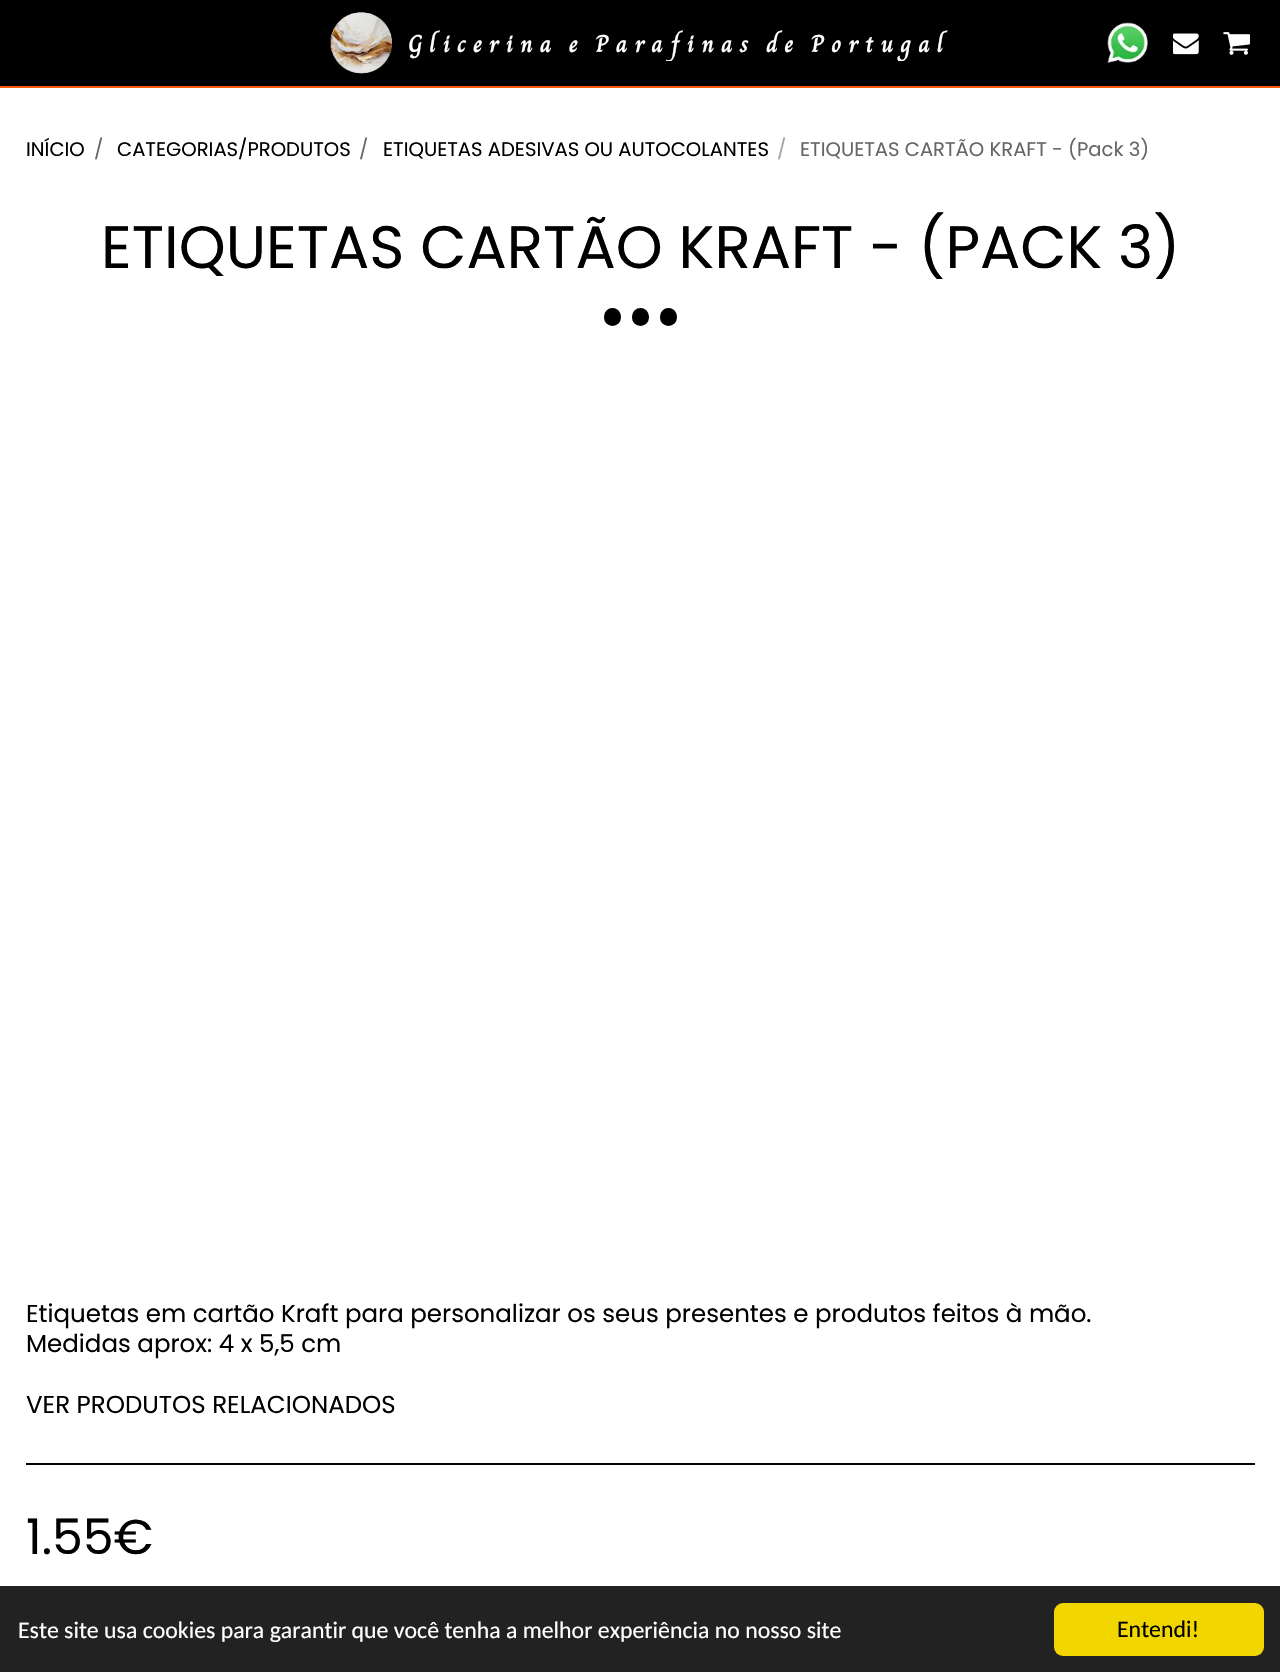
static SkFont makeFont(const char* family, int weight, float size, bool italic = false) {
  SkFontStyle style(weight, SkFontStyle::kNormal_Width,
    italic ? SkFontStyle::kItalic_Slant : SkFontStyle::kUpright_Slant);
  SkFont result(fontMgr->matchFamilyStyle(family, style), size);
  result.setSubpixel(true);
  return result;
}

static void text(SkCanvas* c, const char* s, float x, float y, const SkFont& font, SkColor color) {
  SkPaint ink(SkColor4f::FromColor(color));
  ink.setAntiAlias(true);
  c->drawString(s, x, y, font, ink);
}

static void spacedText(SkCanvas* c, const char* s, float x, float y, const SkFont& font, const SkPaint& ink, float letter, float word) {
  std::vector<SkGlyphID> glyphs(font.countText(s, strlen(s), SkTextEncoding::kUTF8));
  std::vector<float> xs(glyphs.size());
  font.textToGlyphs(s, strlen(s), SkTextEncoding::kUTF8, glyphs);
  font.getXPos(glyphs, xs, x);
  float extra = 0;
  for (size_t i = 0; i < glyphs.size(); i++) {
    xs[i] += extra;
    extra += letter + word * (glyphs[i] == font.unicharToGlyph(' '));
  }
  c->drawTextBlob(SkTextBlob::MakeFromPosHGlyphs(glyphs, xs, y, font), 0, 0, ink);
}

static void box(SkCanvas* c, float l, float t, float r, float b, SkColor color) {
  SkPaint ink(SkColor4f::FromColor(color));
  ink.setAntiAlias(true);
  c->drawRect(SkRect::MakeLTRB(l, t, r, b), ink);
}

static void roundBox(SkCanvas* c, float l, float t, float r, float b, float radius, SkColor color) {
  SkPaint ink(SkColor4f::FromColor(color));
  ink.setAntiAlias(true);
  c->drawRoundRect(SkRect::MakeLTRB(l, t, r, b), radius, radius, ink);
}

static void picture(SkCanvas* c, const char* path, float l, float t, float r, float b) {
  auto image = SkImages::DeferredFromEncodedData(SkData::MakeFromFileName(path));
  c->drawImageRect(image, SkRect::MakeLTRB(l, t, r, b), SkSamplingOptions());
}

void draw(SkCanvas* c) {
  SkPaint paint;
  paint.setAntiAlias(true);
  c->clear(0xffffffff);
  box(c, 0, 0, 1280, 86, 0xff000000);
  box(c, 0, 86, 1280, 88, 0xfffa5b0f);
  picture(c, "img_01.png", 330, 12, 392, 74);
  c->save();
  c->clipRect(SkRect::MakeLTRB(401, 26, 950, 61));
  SkFont face1 = makeFont("Charm", 700, 24.5f);
  paint.setColor(0xffffffff);
  spacedText(c, "Glicerina e Parafinas de Portugal", 408, 52, face1, paint, 7, -3.5f);
  c->restore();
  picture(c, "img_02.png", 1107, 22, 1148, 63);
  picture(c, "img_03.png", 1173, 33, 1199, 55);
  picture(c, "img_04.png", 1223, 32, 1250, 55);
  SkFont face2 = makeFont("Poppins", 400, 19.6f);
  text(c, "INÍCIO", 26, 156, face2, 0xff000000);
  text(c, "/", 94, 156, face2, 0xff666666);
  text(c, "CATEGORIAS/PRODUTOS", 117, 156, face2, 0xff000000);
  text(c, "/", 359, 156, face2, 0xff666666);
  text(c, "ETIQUETAS ADESIVAS OU AUTOCOLANTES", 383, 156, face2, 0xff000000);
  text(c, "/", 777, 156, face2, 0xffa3a3a3);
  text(c, "ETIQUETAS CARTÃO KRAFT - (Pack 3)", 800, 156, face2, 0xff666666);
  SkFont face3 = makeFont("Poppins", 400, 59.75f);
  text(c, "ETIQUETAS CARTÃO KRAFT - (PACK 3)", 101, 268, face3, 0xff000000);
  roundBox(c, 604, 308, 621, 326, 8.5f, 0xff000000);
  roundBox(c, 632, 308, 649, 326, 8.5f, 0xff000000);
  roundBox(c, 660, 308, 677, 326, 8.5f, 0xff000000);
  SkFont face4 = makeFont("Poppins", 400, 24.5f);
  text(c, "Etiquetas em cartão Kraft para personalizar os seus presentes e produtos feitos à mão.", 26, 1322, face4, 0xff000000);
  text(c, "Medidas aprox: 4 x 5,5 cm", 26, 1352, face4, 0xff000000);
  text(c, "VER PRODUTOS RELACIONADOS", 26, 1413, face4, 0xff000000);
  box(c, 26, 1463, 1255, 1465, 0xff000000);
  SkFont face5 = makeFont("Poppins", 400, 49);
  text(c, "1.55€", 26, 1554, face5, 0xff000000);
  box(c, 0, 1586, 1280, 1672, 0xff222222);
  SkFont face6 = makeFont("Carlito", 400, 23.8f);
  text(c, "Este site usa cookies para garantir que você tenha a melhor experiência no nosso site", 18, 1638, face6, 0xffffffff);
  roundBox(c, 1054, 1603, 1264, 1656, 9, 0xfff1d600);
  text(c, "Entendi!", 1117, 1637, face6, 0xff000000);
}
